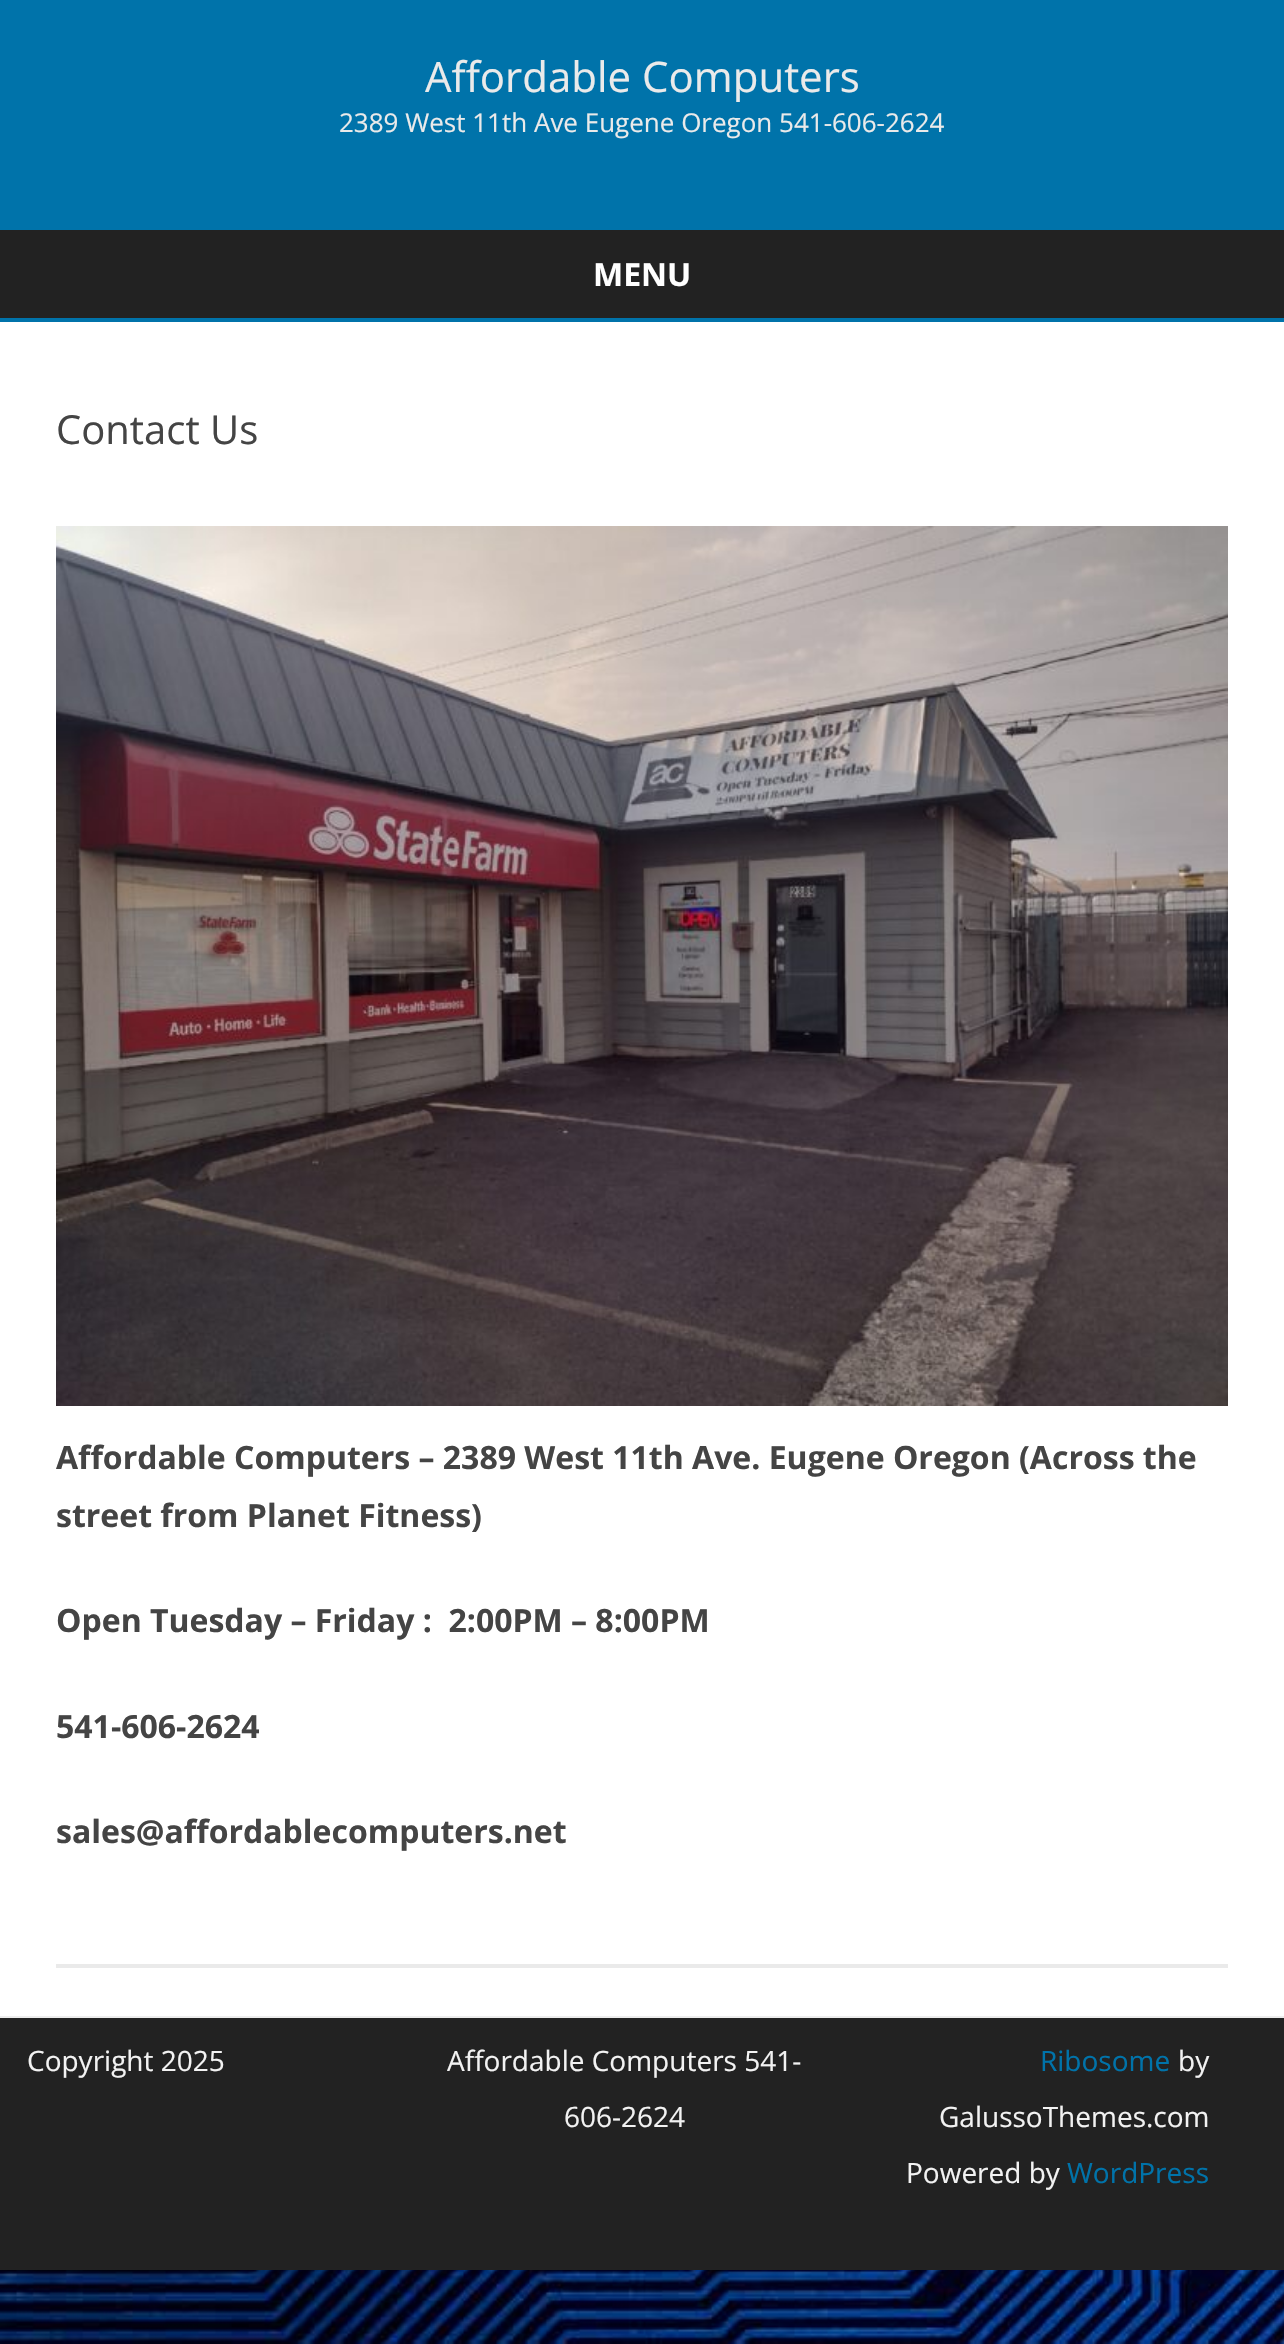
static SkFont makeFont(const char* family, int weight, float size, bool italic = false) {
  SkFontStyle style(weight, SkFontStyle::kNormal_Width,
    italic ? SkFontStyle::kItalic_Slant : SkFontStyle::kUpright_Slant);
  SkFont result(fontMgr->matchFamilyStyle(family, style), size);
  result.setSubpixel(true);
  return result;
}

static void text(SkCanvas* c, const char* s, float x, float y, const SkFont& font, SkColor color) {
  SkPaint ink(SkColor4f::FromColor(color));
  ink.setAntiAlias(true);
  c->drawString(s, x, y, font, ink);
}

static void box(SkCanvas* c, float l, float t, float r, float b, SkColor color) {
  SkPaint ink(SkColor4f::FromColor(color));
  ink.setAntiAlias(true);
  c->drawRect(SkRect::MakeLTRB(l, t, r, b), ink);
}

static void picture(SkCanvas* c, const char* path, float l, float t, float r, float b) {
  auto image = SkImages::DeferredFromEncodedData(SkData::MakeFromFileName(path));
  c->drawImageRect(image, SkRect::MakeLTRB(l, t, r, b), SkSamplingOptions());
}

void draw(SkCanvas* c) {
  SkPaint paint;
  paint.setAntiAlias(true);
  c->clear(0xffffffff);
  picture(c, "img_01.png", 0, 2270, 1284, 2344);
  box(c, 0, 0, 1284, 230, 0xff0073aa);
  SkFont face1 = makeFont("Open Sans", 400, 42);
  text(c, "Affordable Computers", 425, 92, face1, 0xffeaeaea);
  SkFont face2 = makeFont("Open Sans", 400, 26);
  text(c, "2389 West 11th Ave Eugene Oregon 541-606-2624", 339, 132, face2, 0xffeaeaea);
  box(c, 0, 230, 1284, 318, 0xff222222);
  SkFont face3 = makeFont("Open Sans", 700, 32);
  text(c, "MENU", 593, 286, face3, 0xffffffff);
  box(c, 0, 318, 1284, 322, 0xff0073aa);
  SkFont face4 = makeFont("Open Sans", 400, 40);
  text(c, "Contact Us", 56, 444, face4, 0xff444444);
  picture(c, "img_02.png", 56, 526, 1228, 1406);
  text(c, "Affordable Computers – 2389 West 11th Ave. Eugene Oregon (Across the", 56, 1469, face3, 0xff444444);
  text(c, "street from Planet Fitness)", 56, 1527, face3, 0xff444444);
  text(c, "Open Tuesday – Friday :  2:00PM – 8:00PM", 56, 1632, face3, 0xff444444);
  text(c, "541-606-2624", 56, 1738, face3, 0xff444444);
  text(c, "sales@affordablecomputers.net", 56, 1843, face3, 0xff444444);
  box(c, 56, 1964, 1228, 1968, 0xffeaeaea);
  box(c, 0, 2018, 1284, 2270, 0xff222222);
  box(c, 0, 2016, 1284, 2018, 0xffededed);
  SkFont face5 = makeFont("Open Sans", 400, 28);
  text(c, "Copyright 2025", 27, 2071, face5, 0xfff2f2f2);
  text(c, "Affordable Computers 541-", 447, 2071, face5, 0xfff2f2f2);
  text(c, "606-2624", 564, 2127, face5, 0xfff2f2f2);
  text(c, "Ribosome", 1040, 2071, face5, 0xff0073aa);
  text(c, "by", 1178, 2071, face5, 0xfff2f2f2);
  text(c, "GalussoThemes.com", 939, 2127, face5, 0xfff2f2f2);
  text(c, "Powered by", 906, 2183, face5, 0xfff2f2f2);
  text(c, "WordPress", 1067, 2183, face5, 0xff0073aa);
}
